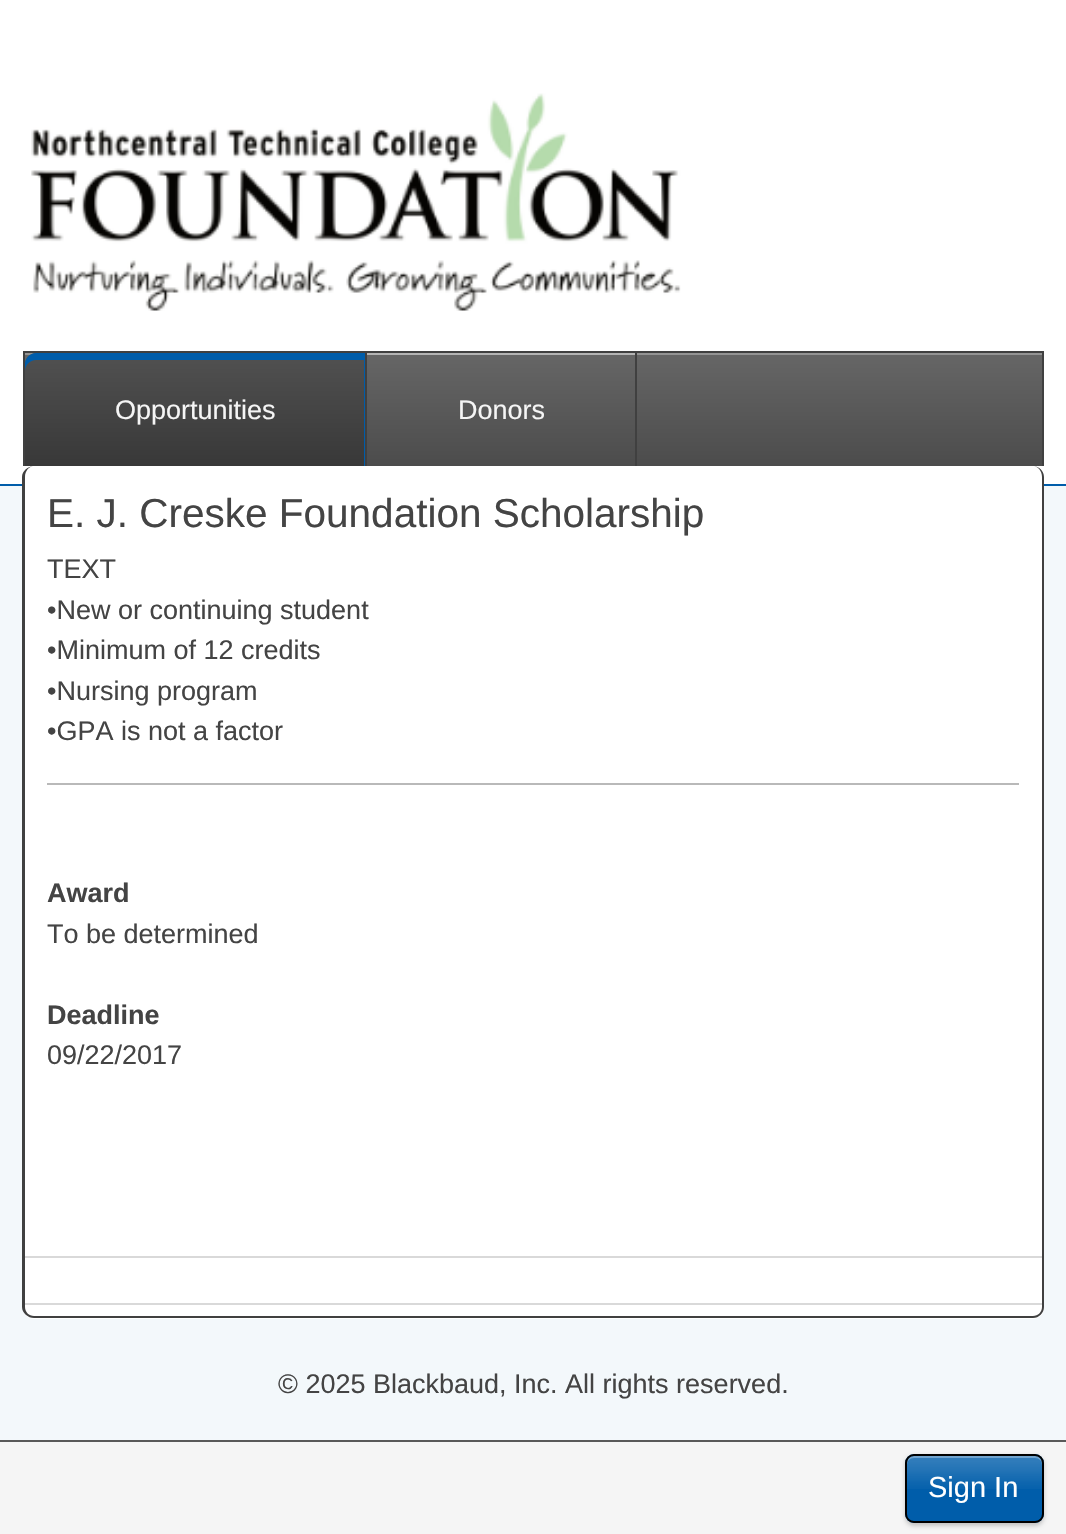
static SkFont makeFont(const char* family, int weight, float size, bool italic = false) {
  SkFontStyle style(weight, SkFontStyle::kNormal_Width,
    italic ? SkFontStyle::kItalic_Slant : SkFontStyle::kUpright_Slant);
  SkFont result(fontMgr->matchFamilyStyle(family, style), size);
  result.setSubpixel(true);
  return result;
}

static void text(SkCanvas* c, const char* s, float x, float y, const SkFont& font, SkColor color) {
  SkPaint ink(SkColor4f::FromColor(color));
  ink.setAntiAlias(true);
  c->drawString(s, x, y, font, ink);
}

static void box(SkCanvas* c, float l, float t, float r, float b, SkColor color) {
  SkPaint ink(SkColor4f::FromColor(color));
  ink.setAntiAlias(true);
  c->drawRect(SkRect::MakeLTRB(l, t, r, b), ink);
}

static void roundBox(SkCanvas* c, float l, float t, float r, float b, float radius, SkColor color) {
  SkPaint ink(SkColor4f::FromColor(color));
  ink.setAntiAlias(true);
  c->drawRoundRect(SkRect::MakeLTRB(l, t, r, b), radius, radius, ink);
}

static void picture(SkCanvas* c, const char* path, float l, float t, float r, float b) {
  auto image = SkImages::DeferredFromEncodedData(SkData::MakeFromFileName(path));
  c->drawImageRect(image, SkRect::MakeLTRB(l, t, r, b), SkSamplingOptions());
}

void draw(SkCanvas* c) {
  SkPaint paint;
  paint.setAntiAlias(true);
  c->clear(0xfff3f8fb);
  box(c, 0, 0, 1066, 484, 0xffffffff);
  {
    const SkColor colors[] = {0xff666666, 0xff4c4c4c};
    const float stops[] = {0, 1};
    const SkPoint ends[] = {{533, 353}, {533, 466}};
    paint.setShader(SkGradientShader::MakeLinear(ends, colors, stops, 2, SkTileMode::kClamp));
    paint.setAlpha(255);
  }
  c->drawRect(SkRect::MakeLTRB(25, 355, 1042, 466), paint);
  box(c, 25, 353, 1042, 355, 0xff949494);
  box(c, 23, 351, 1044, 353, 0xff404040);
  box(c, 1042, 351, 1044, 466, 0xff404040);
  box(c, 23, 351, 25, 466, 0xff404040);
  {
    const SkColor colors[] = {0xff515151, 0xff383838};
    const float stops[] = {0, 1};
    const SkPoint ends[] = {{195, 353}, {195, 466}};
    paint.setShader(SkGradientShader::MakeLinear(ends, colors, stops, 2, SkTileMode::kClamp));
    paint.setAlpha(255);
  }
  c->drawPath(SkPathBuilder().moveTo(36, 353).lineTo(367, 353).lineTo(367, 466).lineTo(25, 466).lineTo(25, 364).cubicTo(25, 358, 30, 353, 36, 353).close().detach(), paint);
  paint.setShader(nullptr);
  paint.setColor(0xff005daa);
  c->drawPath(SkPathBuilder().moveTo(36, 360).lineTo(364, 360).lineTo(364, 466).lineTo(365, 466).lineTo(365, 353).lineTo(36, 353).cubicTo(30, 353, 25, 358, 25, 364).lineTo(25, 371).cubicTo(25, 365, 30, 360, 36, 360).close().detach(), paint);
  box(c, 365, 353, 367, 466, 0xff404040);
  SkFont face1 = makeFont("Liberation Sans", 400, 27);
  text(c, "Opportunities", 115, 419, face1, 0xfff5f5f5);
  box(c, 367, 353, 635, 355, 0xffb4b4b4);
  box(c, 635, 353, 637, 466, 0xff404040);
  text(c, "Donors", 458, 419, face1, 0xfff5f5f5);
  box(c, 0, 484, 1066, 486, 0xff005daa);
  roundBox(c, 23, 466, 1044, 1319, 11, 0xffffffff);
  paint.setColor(0xff404040);
  c->drawPath(SkPathBuilder(SkPathFillType::kEvenOdd).moveTo(34, 466).lineTo(1033, 466).cubicTo(1039, 466, 1044, 471, 1044, 477).lineTo(1044, 1307).cubicTo(1044, 1313, 1039, 1318, 1033, 1318).lineTo(34, 1318).cubicTo(28, 1318, 22, 1313, 22, 1307).lineTo(22, 477).cubicTo(22, 471, 28, 466, 34, 466).close().moveTo(34, 466).lineTo(1033, 466).cubicTo(1038, 466, 1042, 471, 1042, 477).lineTo(1042, 1307).cubicTo(1042, 1312, 1038, 1316, 1033, 1316).lineTo(34, 1316).cubicTo(29, 1316, 25, 1312, 25, 1307).lineTo(25, 477).cubicTo(25, 471, 29, 466, 34, 466).close().detach(), paint);
  box(c, 47, 783, 1019, 785, 0xffb9b9b9);
  SkFont face2 = makeFont("Liberation Sans", 400, 40.5f);
  text(c, "E. J. Creske Foundation Scholarship", 47, 527, face2, 0xff444444);
  text(c, "TEXT", 47, 578, face1, 0xff444444);
  text(c, "•New or continuing student", 47, 619, face1, 0xff444444);
  text(c, "•Minimum of 12 credits", 47, 659, face1, 0xff444444);
  text(c, "•Nursing program", 47, 700, face1, 0xff444444);
  text(c, "•GPA is not a factor", 47, 740, face1, 0xff444444);
  SkFont face3 = makeFont("Liberation Sans", 700, 27);
  text(c, "Award", 47, 902, face3, 0xff444444);
  text(c, "To be determined", 47, 943, face1, 0xff444444);
  text(c, "Deadline", 47, 1024, face3, 0xff444444);
  text(c, "09/22/2017", 47, 1064, face1, 0xff444444);
  box(c, 25, 1256, 1042, 1258, 0xffd9d9d9);
  box(c, 25, 1303, 1042, 1305, 0xffd9d9d9);
  text(c, "© 2025 Blackbaud, Inc. All rights reserved.", 278, 1393, face1, 0xff444444);
  picture(c, "img_01.png", 31, 93, 681, 311);
  box(c, 0, 1442, 1066, 1534, 0xfff5f5f5);
  box(c, 0, 1440, 1066, 1442, 0xff595959);
  paint.setColor(0x33000000);
  paint.setMaskFilter(SkMaskFilter::MakeBlur(kNormal_SkBlurStyle, 2));
  c->drawRoundRect(SkRect::MakeLTRB(905, 1456, 1044, 1526), 9, 9, paint);
  paint.setMaskFilter(nullptr);
  roundBox(c, 905, 1454, 1044, 1523, 9, 0xff005daa);
  picture(c, "img_02.png", 905, 1455, 1044, 1489);
  paint.setColor(0x4dffffff);
  c->drawPath(SkPathBuilder().moveTo(914, 1458).lineTo(1035, 1458).cubicTo(1039, 1458, 1042, 1461, 1042, 1465).lineTo(1042, 1463).cubicTo(1042, 1459, 1039, 1456, 1035, 1456).lineTo(914, 1456).cubicTo(910, 1456, 907, 1459, 907, 1463).lineTo(907, 1465).cubicTo(907, 1461, 910, 1458, 914, 1458).close().detach(), paint);
  paint.setStyle(SkPaint::kStroke_Style);
  paint.setStrokeWidth(2);
  paint.setColor(0xff000000);
  c->drawRoundRect(SkRect::MakeLTRB(906, 1455, 1043, 1522), 8, 8, paint);
  SkFont face4 = makeFont("Liberation Sans", 400, 29);
  text(c, "Sign In", 928, 1497, face4, 0xffffffff);
}
